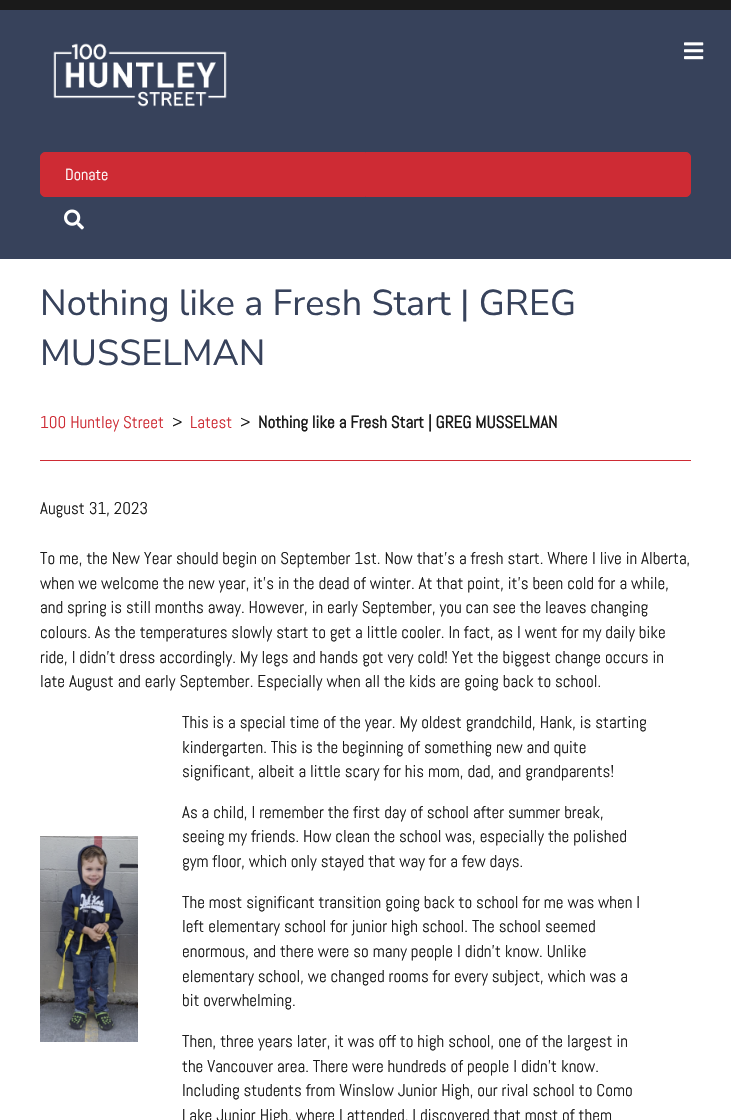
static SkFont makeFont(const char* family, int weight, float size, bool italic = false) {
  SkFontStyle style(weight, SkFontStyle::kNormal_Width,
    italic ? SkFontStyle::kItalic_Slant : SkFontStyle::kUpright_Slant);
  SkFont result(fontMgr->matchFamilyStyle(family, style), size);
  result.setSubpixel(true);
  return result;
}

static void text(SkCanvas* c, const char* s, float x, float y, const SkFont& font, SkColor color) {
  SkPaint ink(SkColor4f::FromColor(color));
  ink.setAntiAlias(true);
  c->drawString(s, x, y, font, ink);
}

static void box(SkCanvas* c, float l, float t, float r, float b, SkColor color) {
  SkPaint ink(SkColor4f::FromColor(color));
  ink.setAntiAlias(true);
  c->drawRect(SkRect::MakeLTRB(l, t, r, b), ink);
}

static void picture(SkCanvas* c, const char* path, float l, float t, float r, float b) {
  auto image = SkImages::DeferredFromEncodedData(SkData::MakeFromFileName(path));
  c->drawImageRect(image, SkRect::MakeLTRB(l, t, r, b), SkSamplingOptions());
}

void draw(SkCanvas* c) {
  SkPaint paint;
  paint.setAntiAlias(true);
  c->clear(0xffffffff);
  box(c, 0, 0, 731, 10, 0xff1a1a1a);
  box(c, 0, 10, 731, 259, 0xff37425b);
  picture(c, "img_01.png", 53, 43, 227, 107);
  picture(c, "img_02.png", 684, 42, 704, 60);
  paint.setColor(0xffce2b34);
  c->drawRoundRect(SkRect::MakeLTRB(40.5f, 152.5f, 690.5f, 196.5f), 4.5f, 4.5f, paint);
  paint.setStyle(SkPaint::kStroke_Style);
  paint.setStrokeWidth(1);
  c->drawRoundRect(SkRect::MakeLTRB(40.5f, 152.5f, 690.5f, 196.5f), 4.5f, 4.5f, paint);
  SkFont face1 = makeFont("Abel", 400, 16);
  text(c, "Donate", 65, 180, face1, 0xffffffff);
  picture(c, "img_03.png", 64, 209, 84, 230);
  SkFont face2 = makeFont("Nunito Sans", 200, 36);
  text(c, "Nothing like a Fresh Start | GREG", 40, 315, face2, 0xff37425b);
  text(c, "MUSSELMAN", 40, 365, face2, 0xff37425b);
  box(c, 40, 460, 691, 461, 0xffce2b34);
  SkFont face3 = makeFont("Abel", 400, 17);
  text(c, "100 Huntley Street", 40, 428, face3, 0xffce2b34);
  text(c, ">", 172, 428, face3, 0xff1a1a1a);
  text(c, "Latest", 190, 428, face3, 0xffce2b34);
  text(c, ">", 240, 428, face3, 0xff1a1a1a);
  SkFont face4 = makeFont("Abel", 700, 17);
  text(c, "Nothing like a Fresh Start | GREG MUSSELMAN", 258, 428, face4, 0xff1a1a1a);
  text(c, "August 31, 2023", 40, 514, face3, 0xff1a1a1a);
  text(c, "To me, the New Year should begin on September 1st. Now that’s a fresh start. Where I live in Alberta,", 40, 564, face3, 0xff1a1a1a);
  text(c, "when we welcome the new year, it’s in the dead of winter. At that point, it’s been cold for a while,", 40, 589, face3, 0xff1a1a1a);
  text(c, "and spring is still months away. However, in early September, you can see the leaves changing", 40, 613, face3, 0xff1a1a1a);
  text(c, "colours. As the temperatures slowly start to get a little cooler. In fact, as I went for my daily bike", 40, 638, face3, 0xff1a1a1a);
  text(c, "ride, I didn’t dress accordingly. My legs and hands got very cold! Yet the biggest change occurs in", 40, 663, face3, 0xff1a1a1a);
  text(c, "late August and early September. Especially when all the kids are going back to school.", 40, 687, face3, 0xff1a1a1a);
  picture(c, "img_04.png", 40, 836, 138, 1042);
  text(c, "This is a special time of the year. My oldest grandchild, Hank, is starting", 182, 728, face3, 0xff1a1a1a);
  text(c, "kindergarten. This is the beginning of something new and quite", 182, 753, face3, 0xff1a1a1a);
  text(c, "significant, albeit a little scary for his mom, dad, and grandparents!", 182, 777, face3, 0xff1a1a1a);
  text(c, "As a child, I remember the first day of school after summer break,", 182, 818, face3, 0xff1a1a1a);
  text(c, "seeing my friends. How clean the school was, especially the polished", 182, 842, face3, 0xff1a1a1a);
  text(c, "gym floor, which only stayed that way for a few days.", 182, 867, face3, 0xff1a1a1a);
  text(c, "The most significant transition going back to school for me was when I", 182, 908, face3, 0xff1a1a1a);
  text(c, "left elementary school for junior high school. The school seemed", 182, 932, face3, 0xff1a1a1a);
  text(c, "enormous, and there were so many people I didn’t know. Unlike", 182, 957, face3, 0xff1a1a1a);
  text(c, "elementary school, we changed rooms for every subject, which was a", 182, 982, face3, 0xff1a1a1a);
  text(c, "bit overwhelming.", 182, 1006, face3, 0xff1a1a1a);
  text(c, "Then, three years later, it was off to high school, one of the largest in", 182, 1047, face3, 0xff1a1a1a);
  text(c, "the Vancouver area. There were hundreds of people I didn’t know.", 182, 1072, face3, 0xff1a1a1a);
  text(c, "Including students from Winslow Junior High, our rival school to Como", 182, 1096, face3, 0xff1a1a1a);
  text(c, "Lake Junior High, where I attended. I discovered that most of them", 182, 1121, face3, 0xff1a1a1a);
}
